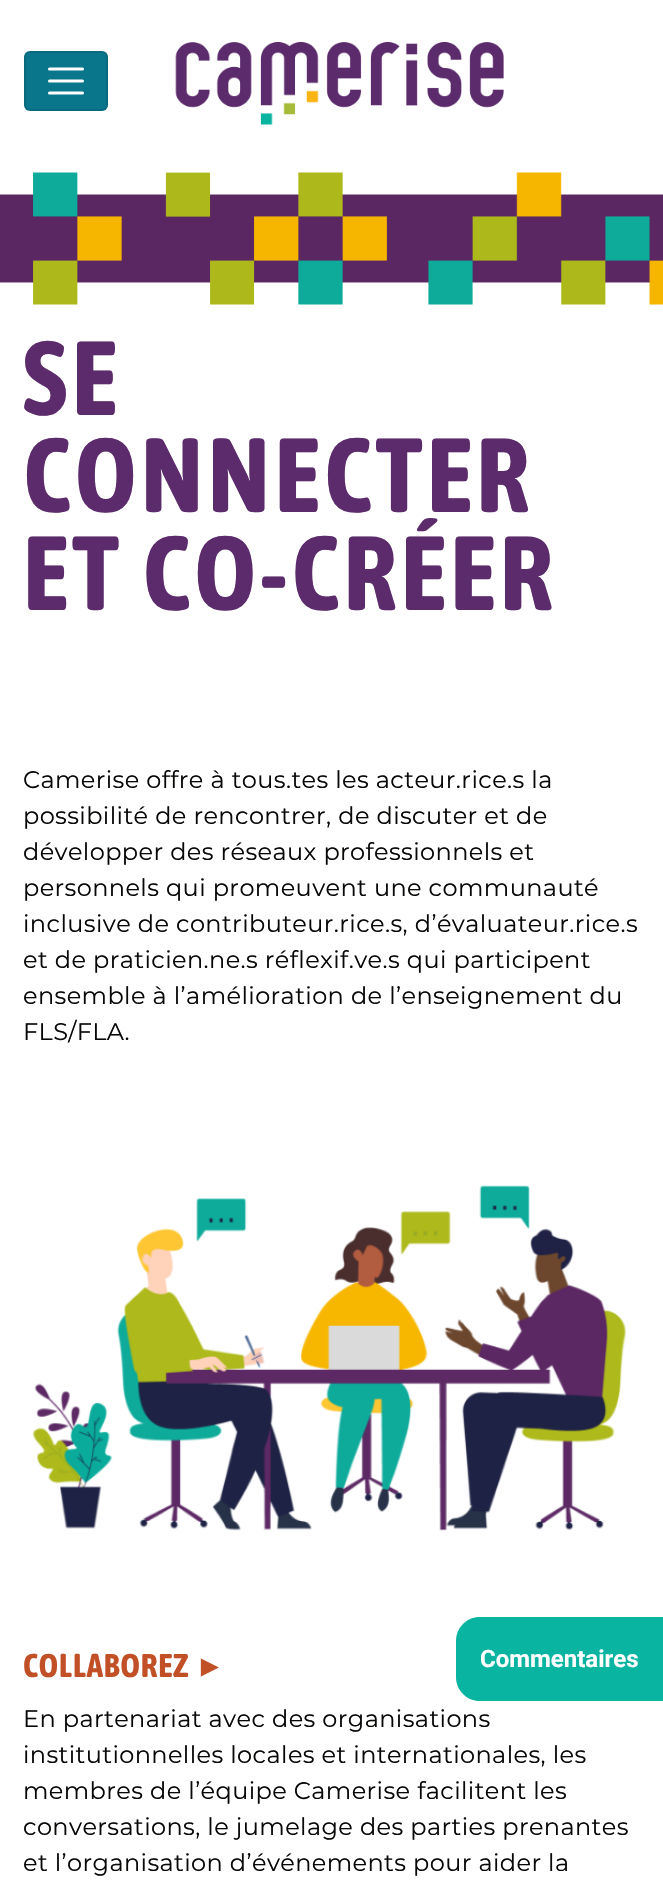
static SkFont makeFont(const char* family, int weight, float size, bool italic = false) {
  SkFontStyle style(weight, SkFontStyle::kNormal_Width,
    italic ? SkFontStyle::kItalic_Slant : SkFontStyle::kUpright_Slant);
  SkFont result(fontMgr->matchFamilyStyle(family, style), size);
  result.setSubpixel(true);
  return result;
}

static void text(SkCanvas* c, const char* s, float x, float y, const SkFont& font, SkColor color) {
  SkPaint ink(SkColor4f::FromColor(color));
  ink.setAntiAlias(true);
  c->drawString(s, x, y, font, ink);
}

static void spacedText(SkCanvas* c, const char* s, float x, float y, const SkFont& font, const SkPaint& ink, float letter, float word) {
  std::vector<SkGlyphID> glyphs(font.countText(s, strlen(s), SkTextEncoding::kUTF8));
  std::vector<float> xs(glyphs.size());
  font.textToGlyphs(s, strlen(s), SkTextEncoding::kUTF8, glyphs);
  font.getXPos(glyphs, xs, x);
  float extra = 0;
  for (size_t i = 0; i < glyphs.size(); i++) {
    xs[i] += extra;
    extra += letter + word * (glyphs[i] == font.unicharToGlyph(' '));
  }
  c->drawTextBlob(SkTextBlob::MakeFromPosHGlyphs(glyphs, xs, y, font), 0, 0, ink);
}

static void roundBox(SkCanvas* c, float l, float t, float r, float b, float radius, SkColor color) {
  SkPaint ink(SkColor4f::FromColor(color));
  ink.setAntiAlias(true);
  c->drawRoundRect(SkRect::MakeLTRB(l, t, r, b), radius, radius, ink);
}

static void picture(SkCanvas* c, const char* path, float l, float t, float r, float b) {
  auto image = SkImages::DeferredFromEncodedData(SkData::MakeFromFileName(path));
  c->drawImageRect(image, SkRect::MakeLTRB(l, t, r, b), SkSamplingOptions());
}

void draw(SkCanvas* c) {
  SkPaint paint;
  paint.setAntiAlias(true);
  c->clear(0xffffffff);
  roundBox(c, 24, 51, 108, 111, 6, 0xff09768b);
  paint.setStyle(SkPaint::kStroke_Style);
  paint.setStrokeWidth(2);
  paint.setColor(0x1a000000);
  c->drawRoundRect(SkRect::MakeLTRB(25, 52, 107, 110), 5, 5, paint);
  paint.setStrokeWidth(3);
  paint.setStrokeCap(SkPaint::kRound_Cap);
  paint.setColor(0xffffffff);
  c->drawPath(SkPathBuilder().moveTo(49.5f, 69).lineTo(82.5f, 69).moveTo(49.5f, 81).lineTo(82.5f, 81).moveTo(49.5f, 93).lineTo(82.5f, 93).detach(), paint);
  picture(c, "img_01.png", 175, 42, 504, 125);
  picture(c, "img_02.png", 0, 172, 663, 305);
  SkFont face1 = makeFont("Asap Condensed", 700, 105);
  paint.setStyle(SkPaint::kFill_Style);
  paint.setColor(0xff5b2b6b);
  spacedText(c, "SE", 23, 415, face1, paint, 4.75f, 0);
  spacedText(c, "CONNECTER", 23, 512, face1, paint, 4.75f, 0);
  spacedText(c, "ET CO-CRÉER", 23, 610, face1, paint, 4.75f, 0);
  SkFont face2 = makeFont("Montserrat", 400, 24);
  paint.setColor(0xff090807);
  spacedText(c, "Camerise offre à tous.tes les acteur.rice.s la", 23, 788, face2, paint, 0.4f, 0);
  spacedText(c, "possibilité de rencontrer, de discuter et de", 23, 824, face2, paint, 0.4f, 0);
  spacedText(c, "développer des réseaux professionnels et", 23, 860, face2, paint, 0.4f, 0);
  spacedText(c, "personnels qui promeuvent une communauté", 23, 896, face2, paint, 0.4f, 0);
  spacedText(c, "inclusive de contributeur.rice.s, d’évaluateur.rice.s", 23, 932, face2, paint, 0.4f, 0);
  spacedText(c, "et de praticien.ne.s réflexif.ve.s qui participent", 23, 968, face2, paint, 0.4f, 0);
  spacedText(c, "ensemble à l’amélioration de l’enseignement du", 23, 1004, face2, paint, 0.4f, 0);
  spacedText(c, "FLS/FLA.", 23, 1040, face2, paint, 0.4f, 0);
  picture(c, "img_03.png", 32, 1185, 627, 1531);
  SkFont face3 = makeFont("Asap Condensed", 700, 33);
  paint.setColor(0xffc15027);
  spacedText(c, "COLLABOREZ", 23, 1677, face3, paint, 1, 0);
  SkFont face4 = makeFont("Liberation Sans", 700, 30);
  spacedText(c, "►", 195, 1676, face4, paint, 1, 0);
  paint.setColor(0xff090807);
  spacedText(c, "En partenariat avec des organisations", 23, 1727, face2, paint, 0.4f, 0);
  spacedText(c, "institutionnelles locales et internationales, les", 23, 1763, face2, paint, 0.4f, 0);
  spacedText(c, "membres de l’équipe Camerise facilitent les", 23, 1799, face2, paint, 0.4f, 0);
  spacedText(c, "conversations, le jumelage des parties prenantes", 23, 1835, face2, paint, 0.4f, 0);
  spacedText(c, "et l’organisation d’événements pour aider la", 23, 1871, face2, paint, 0.4f, 0);
  paint.setColor(0xff09b4a0);
  c->drawPath(SkPathBuilder().moveTo(480, 1617).lineTo(663, 1617).lineTo(663, 1701).lineTo(480, 1701).cubicTo(466.5f, 1701, 456, 1690.5f, 456, 1677).lineTo(456, 1641).cubicTo(456, 1627.5f, 466.5f, 1617, 480, 1617).close().detach(), paint);
  SkFont face5 = makeFont("Roboto", 700, 24);
  text(c, "Commentaires", 480, 1667, face5, 0xffffffff);
}
